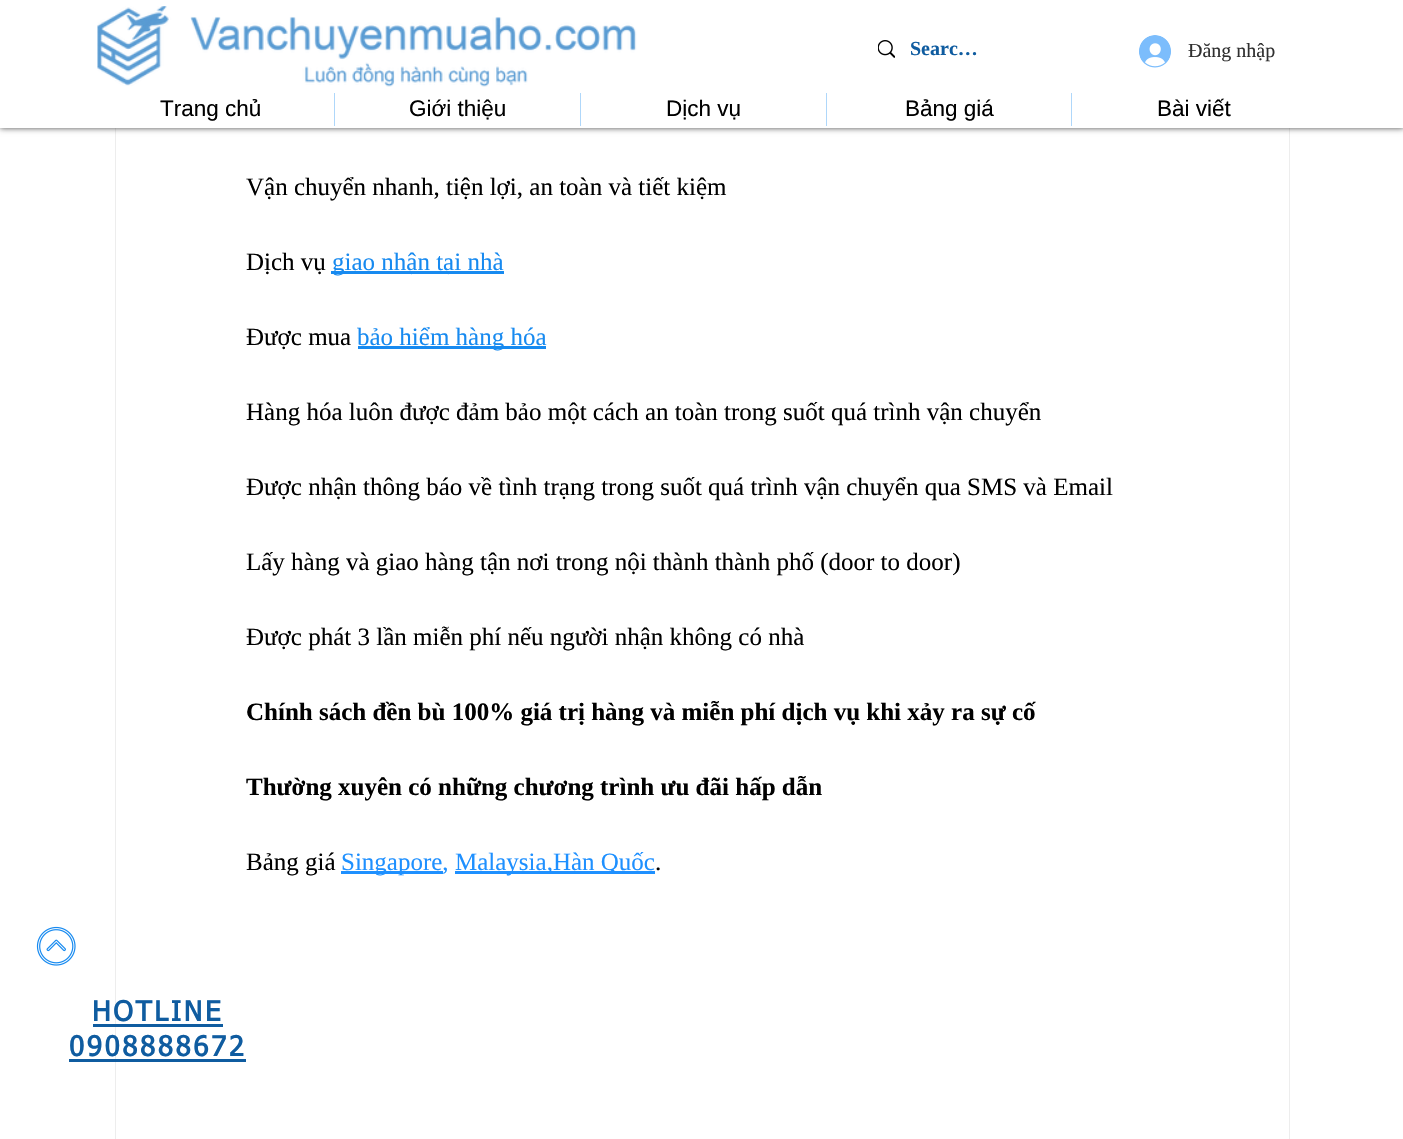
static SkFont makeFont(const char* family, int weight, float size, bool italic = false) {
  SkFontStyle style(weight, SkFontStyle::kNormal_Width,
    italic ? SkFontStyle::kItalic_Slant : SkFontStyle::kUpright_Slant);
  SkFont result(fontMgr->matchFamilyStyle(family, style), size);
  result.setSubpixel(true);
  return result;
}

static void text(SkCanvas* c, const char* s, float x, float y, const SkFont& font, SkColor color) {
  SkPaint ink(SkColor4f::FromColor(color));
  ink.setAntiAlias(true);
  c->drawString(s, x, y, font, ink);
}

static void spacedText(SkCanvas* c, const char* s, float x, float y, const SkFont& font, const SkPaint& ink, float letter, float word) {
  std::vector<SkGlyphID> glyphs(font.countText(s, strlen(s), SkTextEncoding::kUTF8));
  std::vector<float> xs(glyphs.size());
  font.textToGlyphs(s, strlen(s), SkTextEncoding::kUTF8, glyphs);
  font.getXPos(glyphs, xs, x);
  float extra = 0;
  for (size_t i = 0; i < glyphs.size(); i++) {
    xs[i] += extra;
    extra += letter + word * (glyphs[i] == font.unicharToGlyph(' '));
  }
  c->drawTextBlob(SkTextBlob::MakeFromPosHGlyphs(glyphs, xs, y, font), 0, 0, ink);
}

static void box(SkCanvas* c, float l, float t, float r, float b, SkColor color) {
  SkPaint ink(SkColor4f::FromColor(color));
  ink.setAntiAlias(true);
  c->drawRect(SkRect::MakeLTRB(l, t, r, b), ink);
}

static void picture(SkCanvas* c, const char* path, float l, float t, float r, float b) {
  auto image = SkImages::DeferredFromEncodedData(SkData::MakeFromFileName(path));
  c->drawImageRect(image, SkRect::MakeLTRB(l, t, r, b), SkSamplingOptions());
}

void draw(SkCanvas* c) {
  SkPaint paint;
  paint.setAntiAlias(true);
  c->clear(0xffffffff);
  paint.setStyle(SkPaint::kStroke_Style);
  paint.setStrokeWidth(1);
  paint.setColor(0xffededed);
  c->drawRect(SkRect::MakeLTRB(115.5f, -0.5f, 1289.5f, 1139.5f), paint);
  paint.setStyle(SkPaint::kFill_Style);
  paint.setColor(0xb3000000);
  paint.setMaskFilter(SkMaskFilter::MakeBlur(kNormal_SkBlurStyle, 3));
  c->drawRect(SkRect::MakeLTRB(0, 0, 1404, 128), paint);
  paint.setMaskFilter(nullptr);
  box(c, 0, 0, 1403, 128, 0xffffffff);
  picture(c, "img_01.png", 97, 6, 637, 87);
  picture(c, "img_02.png", 878, 40, 895, 58);
  SkFont face1 = makeFont("Liberation Serif", 700, 20);
  text(c, "Searc…", 910, 55, face1, 0xff0f5ca0);
  picture(c, "img_03.png", 1139, 35, 1171, 68);
  SkFont face2 = makeFont("Liberation Serif", 400, 20);
  text(c, "Đăng nhập", 1188, 57, face2, 0xff303030);
  SkFont face3 = makeFont("Liberation Sans", 400, 22.5f);
  text(c, "Trang chủ", 160, 116, face3, 0xff000000);
  box(c, 334, 93, 335, 126, 0xffafd7fa);
  text(c, "Giới thiệu", 409, 116, face3, 0xff000000);
  box(c, 580, 93, 581, 126, 0xffafd7fa);
  text(c, "Dịch vụ", 666, 116, face3, 0xff000000);
  box(c, 826, 93, 827, 126, 0xffafd7fa);
  text(c, "Bảng giá", 905, 116, face3, 0xff000000);
  box(c, 1071, 93, 1072, 126, 0xffafd7fa);
  text(c, "Bài viết", 1157, 116, face3, 0xff000000);
  SkFont face4 = makeFont("Liberation Serif", 400, 25);
  text(c, "Vận chuyển nhanh, tiện lợi, an toàn và tiết kiệm", 246, 195, face4, 0xff000000);
  text(c, "Dịch vụ", 246, 270, face4, 0xff000000);
  box(c, 331, 271, 504, 274, 0xff178af0);
  text(c, "giao nhận tại nhà", 332, 270, face4, 0xff178af0);
  text(c, "Được mua", 246, 345, face4, 0xff000000);
  box(c, 358, 346, 546, 349, 0xff178af0);
  text(c, "bảo hiểm hàng hóa", 357, 345, face4, 0xff178af0);
  text(c, "Hàng hóa luôn được đảm bảo một cách an toàn trong suốt quá trình vận chuyển", 246, 420, face4, 0xff000000);
  text(c, "Được nhận thông báo về tình trạng trong suốt quá trình vận chuyển qua SMS và Email", 246, 495, face4, 0xff000000);
  text(c, "Lấy hàng và giao hàng tận nơi trong nội thành thành phố (door to door)", 246, 570, face4, 0xff000000);
  text(c, "Được phát 3 lần miễn phí nếu người nhận không có nhà", 246, 645, face4, 0xff000000);
  SkFont face5 = makeFont("Liberation Serif", 700, 25);
  text(c, "Chính sách đền bù 100% giá trị hàng và miễn phí dịch vụ khi xảy ra sự cố", 246, 720, face5, 0xff000000);
  text(c, "Thường xuyên có những chương trình ưu đãi hấp dẫn", 246, 795, face5, 0xff000000);
  text(c, "Bảng giá", 246, 870, face4, 0xff000000);
  box(c, 341, 871, 443, 874, 0xff1e90ff);
  text(c, "Singapore,", 341, 870, face4, 0xff1e90ff);
  box(c, 455, 871, 655, 874, 0xff1e90ff);
  text(c, "Malaysia,Hàn Quốc", 455, 870, face4, 0xff1e90ff);
  text(c, ".", 655, 870, face4, 0xff000000);
  picture(c, "img_04.png", 36, 926, 76, 966);
  SkFont face6 = makeFont("tahoma", 700, 27.5f);
  paint.setColor(0xff0f5ca0);
  spacedText(c, "HOTLINE", 92, 1021, face6, paint, 2.75f, 0);
  box(c, 93, 1024, 223, 1027, 0xff0f5ca0);
  spacedText(c, "0908888672", 69, 1056, face6, paint, 2.75f, 0);
  box(c, 69, 1059, 246, 1062, 0xff0f5ca0);
}
